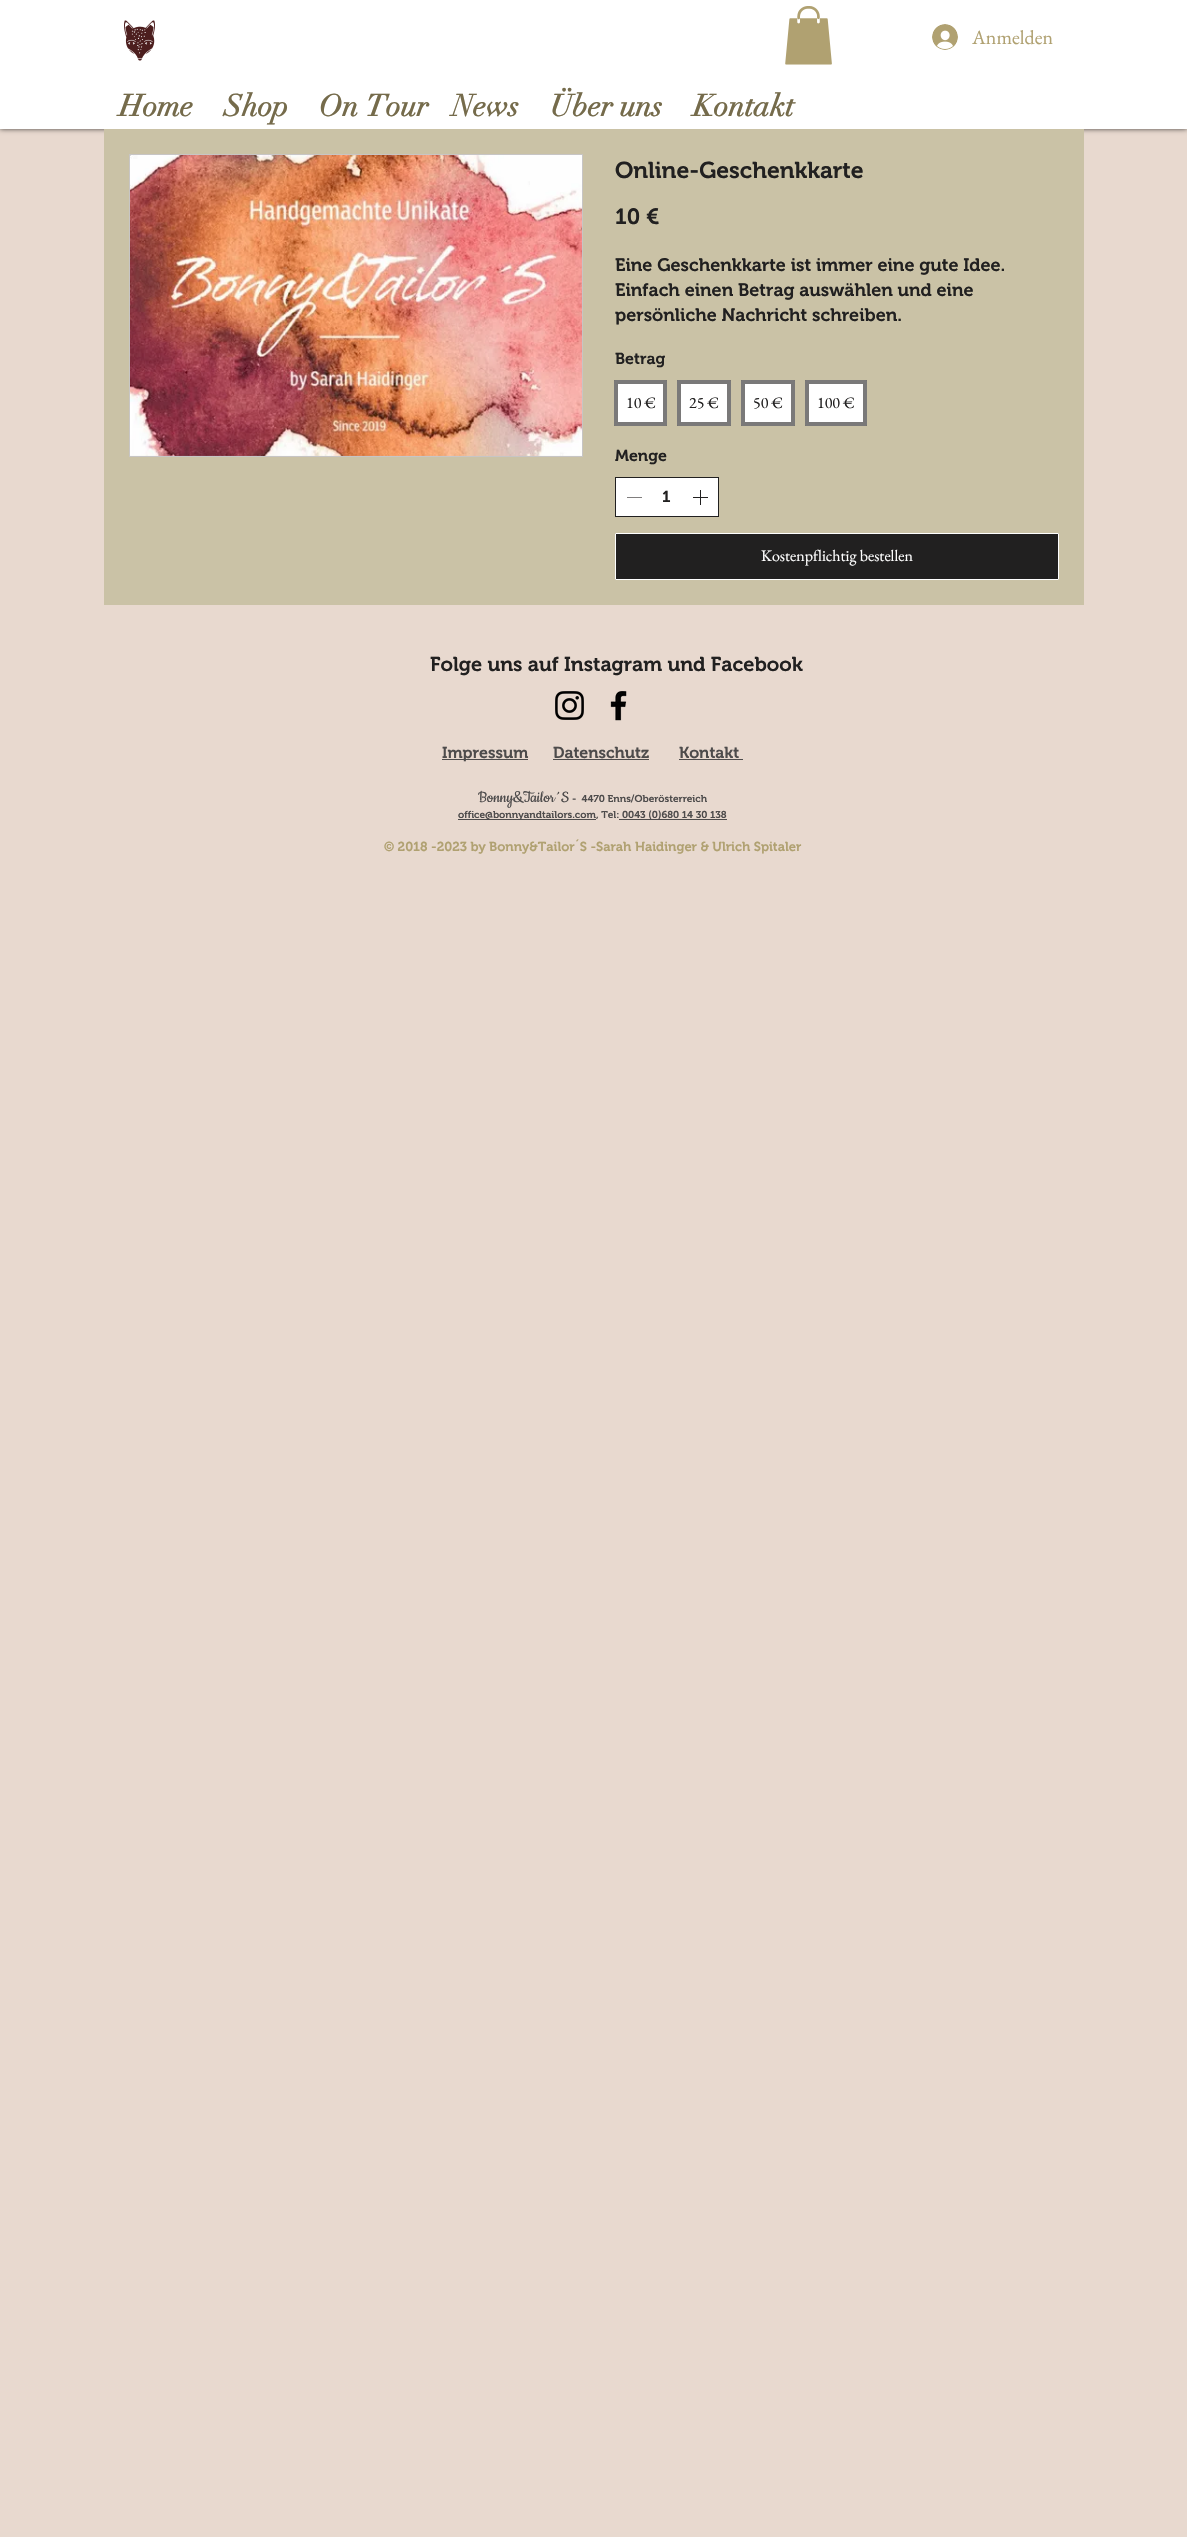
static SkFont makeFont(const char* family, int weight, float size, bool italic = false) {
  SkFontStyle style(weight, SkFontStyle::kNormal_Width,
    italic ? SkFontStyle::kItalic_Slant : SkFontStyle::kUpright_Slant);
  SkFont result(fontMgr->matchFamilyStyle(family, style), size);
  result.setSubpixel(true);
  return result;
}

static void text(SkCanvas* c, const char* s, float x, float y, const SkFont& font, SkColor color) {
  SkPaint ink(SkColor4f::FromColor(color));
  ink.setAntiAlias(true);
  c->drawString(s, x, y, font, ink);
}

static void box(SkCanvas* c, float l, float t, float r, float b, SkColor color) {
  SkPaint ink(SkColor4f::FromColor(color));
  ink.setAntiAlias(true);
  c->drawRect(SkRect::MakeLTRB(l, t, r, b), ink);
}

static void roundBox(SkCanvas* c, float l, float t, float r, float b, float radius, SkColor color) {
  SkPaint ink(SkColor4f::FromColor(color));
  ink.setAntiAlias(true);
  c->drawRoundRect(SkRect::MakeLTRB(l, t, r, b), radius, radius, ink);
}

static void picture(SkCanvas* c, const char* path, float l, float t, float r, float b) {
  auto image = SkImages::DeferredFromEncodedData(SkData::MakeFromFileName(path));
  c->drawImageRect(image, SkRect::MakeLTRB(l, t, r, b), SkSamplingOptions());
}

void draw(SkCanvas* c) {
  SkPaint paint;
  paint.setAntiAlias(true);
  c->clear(0xffe8d9cf);
  paint.setColor(0xb3000000);
  paint.setMaskFilter(SkMaskFilter::MakeBlur(kNormal_SkBlurStyle, 2.5f));
  c->drawRect(SkRect::MakeLTRB(0, 0, 1187, 129), paint);
  paint.setMaskFilter(nullptr);
  box(c, 0, 0, 1187, 129, 0xffffffff);
  picture(c, "img_01.png", 124, 20, 155, 61);
  picture(c, "img_02.png", 785, 6, 832, 65);
  picture(c, "img_03.png", 932, 24, 958, 50);
  SkFont face1 = makeFont("EB Garamond", 400, 20);
  text(c, "Anmelden", 972, 44, face1, 0xffb0a171);
  SkFont face2 = makeFont("didot", 700, 30);
  text(c, "Home", 119, 116, face2, 0xff756b4b);
  text(c, "Shop", 224, 116, face2, 0xff756b4b);
  text(c, "On Tour", 319, 116, face2, 0xff756b4b);
  text(c, "News", 452, 116, face2, 0xff756b4b);
  text(c, "Über uns", 550, 116, face2, 0xff756b4b);
  text(c, "Kontakt", 693, 116, face2, 0xff756b4b);
  box(c, 104, 129, 1084, 605, 0xffcac2a6);
  paint.setStyle(SkPaint::kStroke_Style);
  paint.setStrokeWidth(1);
  paint.setColor(0xffc7c5c5);
  c->drawRect(SkRect::MakeLTRB(129.5f, 154.5f, 582.5f, 456.5f), paint);
  picture(c, "img_04.png", 130, 155, 582, 456);
  SkFont face3 = makeFont("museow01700", 600, 23);
  text(c, "Online-Geschenkkarte", 615, 178, face3, 0xff212020);
  SkFont face4 = makeFont("museow01700", 600, 22);
  text(c, "10 €", 615, 224, face4, 0xff212020);
  SkFont face5 = makeFont("museow01700", 600, 18);
  text(c, "Eine Geschenkkarte ist immer eine gute Idee.", 615, 271, face5, 0xff212020);
  text(c, "Einfach einen Betrag auswählen und eine", 615, 296, face5, 0xff212020);
  text(c, "persönliche Nachricht schreiben.", 615, 321, face5, 0xff212020);
  SkFont face6 = makeFont("museow01700", 600, 16);
  text(c, "Betrag", 615, 364, face6, 0xff212020);
  roundBox(c, 614, 380, 667, 426, 1, 0xffffffff);
  paint.setStrokeWidth(4);
  paint.setColor(0x99212020);
  c->drawPath(SkPathBuilder().moveTo(616, 382).lineTo(665, 382).lineTo(665, 424).lineTo(616, 424).close().detach(), paint);
  SkFont face7 = makeFont("EB Garamond", 400, 16);
  text(c, "10 €", 626, 408, face7, 0xff212020);
  roundBox(c, 677, 380, 731, 426, 1, 0xffffffff);
  c->drawPath(SkPathBuilder().moveTo(679, 382).lineTo(729, 382).lineTo(729, 424).lineTo(679, 424).close().detach(), paint);
  text(c, "25 €", 689, 408, face7, 0xff212020);
  roundBox(c, 741, 380, 795, 426, 1, 0xffffffff);
  c->drawPath(SkPathBuilder().moveTo(743, 382).lineTo(793, 382).lineTo(793, 424).lineTo(743, 424).close().detach(), paint);
  text(c, "50 €", 753, 408, face7, 0xff212020);
  roundBox(c, 805, 380, 867, 426, 1, 0xffffffff);
  c->drawPath(SkPathBuilder().moveTo(807, 382).lineTo(865, 382).lineTo(865, 424).lineTo(807, 424).close().detach(), paint);
  text(c, "100 €", 817, 408, face7, 0xff212020);
  text(c, "Menge", 615, 461, face6, 0xff212020);
  paint.setStyle(SkPaint::kFill_Style);
  paint.setColor(0xffffffff);
  c->drawRect(SkRect::MakeLTRB(615.5f, 477.5f, 718.5f, 516.5f), paint);
  paint.setStyle(SkPaint::kStroke_Style);
  paint.setStrokeWidth(1);
  paint.setColor(0xff212020);
  c->drawRect(SkRect::MakeLTRB(615.5f, 477.5f, 718.5f, 516.5f), paint);
  box(c, 627, 497, 642, 498, 0xff807e7e);
  text(c, "1", 662, 502, face6, 0xff212020);
  picture(c, "img_05.png", 693, 490, 708, 505);
  paint.setStyle(SkPaint::kFill_Style);
  c->drawRoundRect(SkRect::MakeLTRB(615.5f, 533.5f, 1058.5f, 579.5f), 0.5f, 0.5f, paint);
  paint.setStyle(SkPaint::kStroke_Style);
  paint.setColor(0xffffffff);
  c->drawRoundRect(SkRect::MakeLTRB(615.5f, 533.5f, 1058.5f, 579.5f), 0.5f, 0.5f, paint);
  text(c, "Kostenpflichtig bestellen", 761, 561, face7, 0xffffffff);
  SkFont face8 = makeFont("museow01700", 600, 20);
  text(c, "Folge uns auf Instagram und Facebook", 430, 671, face8, 0xff212020);
  picture(c, "img_06.png", 555, 691, 584, 720);
  picture(c, "img_07.png", 610, 691, 627, 721);
  box(c, 442, 759, 528, 760, 0xff4d4b4b);
  text(c, "Impressum", 442, 758, face6, 0xff4d4b4b);
  text(c, "Datenschutz", 553, 758, face6, 0xff4d4b4b);
  box(c, 553, 759, 649, 760, 0xff4d4b4b);
  text(c, "Kontakt", 679, 758, face6, 0xff4d4b4b);
  box(c, 679, 759, 743, 760, 0xff4d4b4b);
  SkFont face9 = makeFont("Cookie", 400, 18);
  text(c, "Bonny&Tailor´S", 478, 802, face9, 0xff4d4b4b);
  SkFont face10 = makeFont("museow01700", 600, 10);
  text(c, "-  4470 Enns/Oberösterreich", 572, 802, face10, 0xff4d4b4b);
  box(c, 458, 819, 596, 820, 0xff4d4b4b);
  text(c, "office@bonnyandtailors.com, Tel: 0043 (0)680 14 30 138", 458, 818, face10, 0xff4d4b4b);
  box(c, 619, 819, 727, 820, 0xff4d4b4b);
  SkFont face11 = makeFont("museow01700", 600, 13);
  text(c, "© 2018 -2023 by Bonny&Tailor´S -Sarah Haidinger & Ulrich Spitaler", 384, 851, face11, 0xffb0a171);
}
